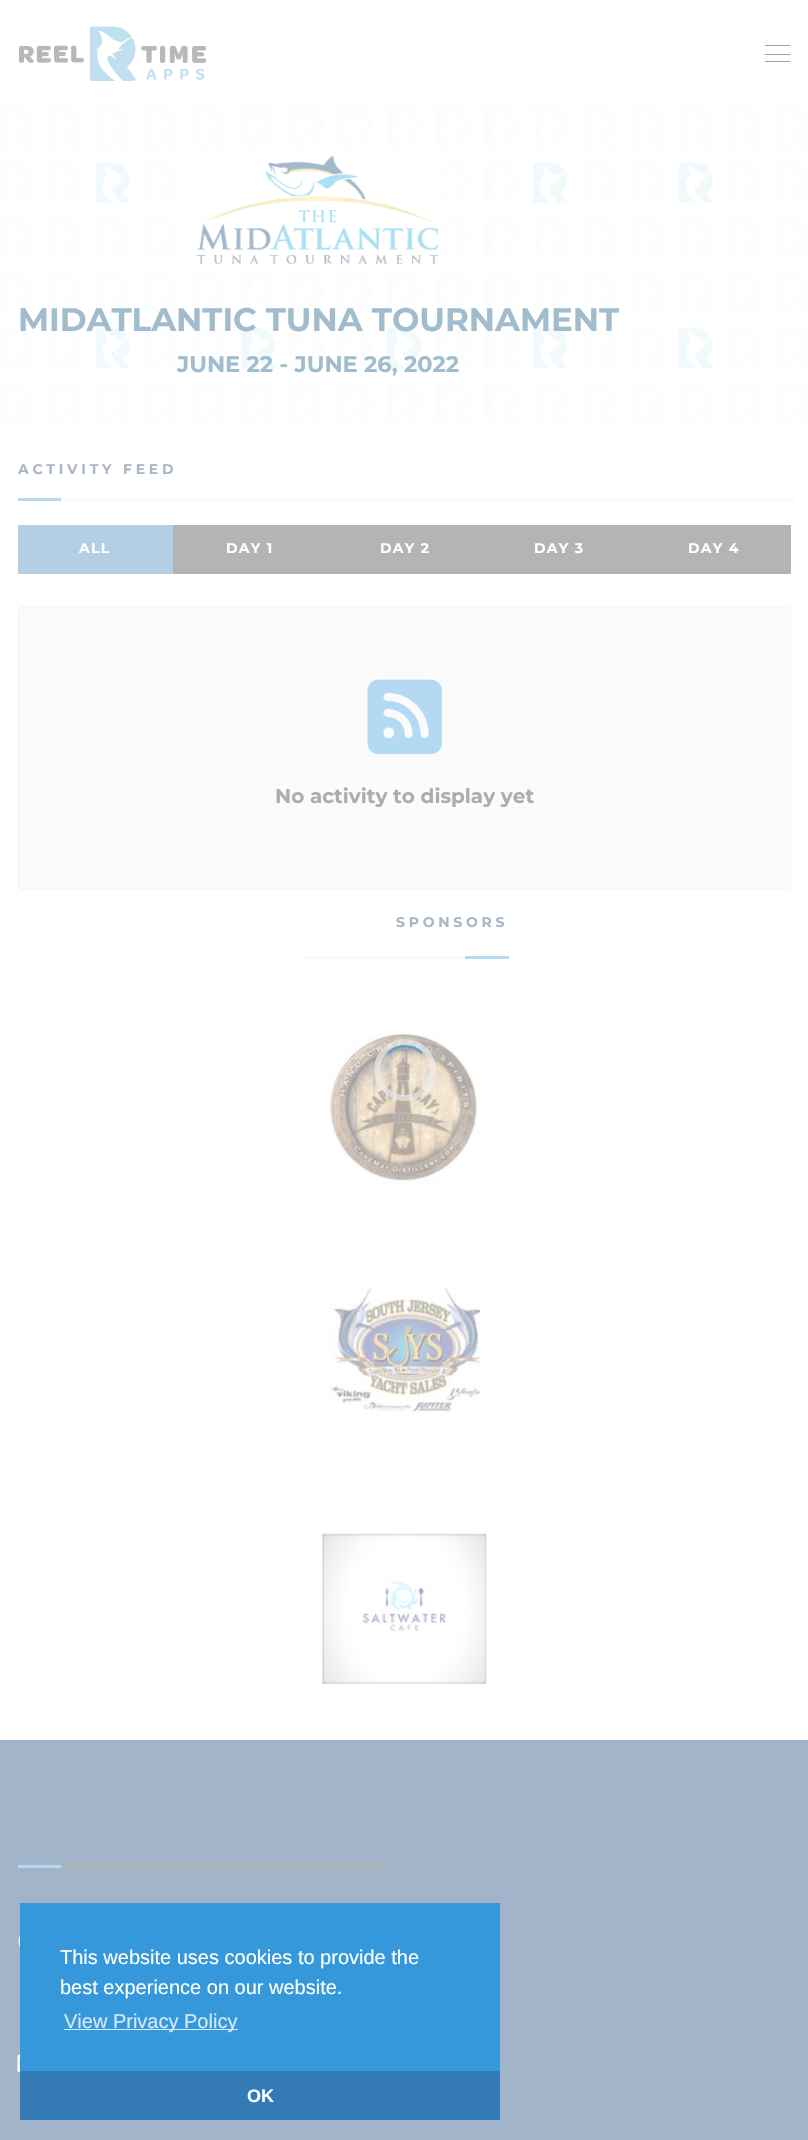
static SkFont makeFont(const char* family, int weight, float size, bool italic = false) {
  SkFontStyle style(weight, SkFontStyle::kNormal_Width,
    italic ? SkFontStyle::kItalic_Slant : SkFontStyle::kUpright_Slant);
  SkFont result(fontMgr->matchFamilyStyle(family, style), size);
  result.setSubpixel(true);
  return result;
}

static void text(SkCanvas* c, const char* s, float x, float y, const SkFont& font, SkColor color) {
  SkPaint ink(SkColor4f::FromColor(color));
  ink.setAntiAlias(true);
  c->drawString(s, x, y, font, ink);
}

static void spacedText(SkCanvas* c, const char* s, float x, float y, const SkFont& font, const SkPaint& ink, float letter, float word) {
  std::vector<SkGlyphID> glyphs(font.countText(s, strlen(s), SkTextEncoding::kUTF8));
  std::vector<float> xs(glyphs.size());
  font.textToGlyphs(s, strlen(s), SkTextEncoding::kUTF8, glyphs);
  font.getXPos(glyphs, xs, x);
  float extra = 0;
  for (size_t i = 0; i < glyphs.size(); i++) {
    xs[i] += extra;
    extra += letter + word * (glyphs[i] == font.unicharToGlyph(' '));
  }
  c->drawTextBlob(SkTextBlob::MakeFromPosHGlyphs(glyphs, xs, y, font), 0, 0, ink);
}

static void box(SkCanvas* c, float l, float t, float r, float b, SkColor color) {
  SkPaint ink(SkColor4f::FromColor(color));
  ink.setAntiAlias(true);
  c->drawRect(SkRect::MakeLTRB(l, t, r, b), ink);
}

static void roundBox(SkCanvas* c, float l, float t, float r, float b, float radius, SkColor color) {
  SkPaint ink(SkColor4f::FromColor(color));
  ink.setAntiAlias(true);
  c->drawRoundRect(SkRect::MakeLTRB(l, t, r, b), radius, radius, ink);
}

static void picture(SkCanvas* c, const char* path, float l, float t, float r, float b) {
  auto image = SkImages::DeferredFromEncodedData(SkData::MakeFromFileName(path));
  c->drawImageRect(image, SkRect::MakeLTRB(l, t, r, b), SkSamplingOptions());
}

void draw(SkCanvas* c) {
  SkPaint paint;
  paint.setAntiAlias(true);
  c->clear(0xffffffff);
  box(c, 0, 106, 808, 107, 0xfffbfbfb);
  picture(c, "img_01.png", 19, 26, 206, 81);
  box(c, 745, 0, 746, 108, 0xfffbfbfb);
  box(c, 765, 45, 790, 46, 0xffa1a1a1);
  box(c, 765, 54, 790, 55, 0xffa1a1a1);
  box(c, 765, 61, 790, 62, 0xffa1a1a1);
  picture(c, "img_02.png", 0, 108, 808, 424);
  picture(c, "img_03.png", 193, 155, 443, 265);
  SkFont face1 = makeFont("Montserrat", 100, 32.5f);
  text(c, "MIDATLANTIC TUNA TOURNAMENT", 18, 331, face1, 0xffa1bdcd);
  SkFont face2 = makeFont("Montserrat", 100, 22.5f);
  text(c, "JUNE 22 - JUNE 26, 2022", 177, 372, face2, 0xffa1bdcd);
  SkFont face3 = makeFont("Montserrat", 100, 14);
  paint.setColor(0xffaab6c3);
  spacedText(c, "ACTIVITY FEED", 18, 474, face3, paint, 3.75f, 0);
  box(c, 18, 498, 61, 501, 0xffb4d9f2);
  box(c, 61, 498, 795, 501, 0xfff9f9f9);
  box(c, 18, 525, 173, 574, 0xffb4cee4);
  paint.setColor(0xffffffff);
  spacedText(c, "ALL", 79, 553, face3, paint, 1.25f, 0);
  box(c, 173, 525, 791, 574, 0xffb4b4b4);
  spacedText(c, "DAY 1", 226, 553, face3, paint, 1.25f, 0);
  spacedText(c, "DAY 2", 380, 553, face3, paint, 1.25f, 0);
  spacedText(c, "DAY 3", 534, 553, face3, paint, 1.25f, 0);
  spacedText(c, "DAY 4", 688, 553, face3, paint, 1.25f, 0);
  roundBox(c, 18, 606, 791, 890, 5, 0xfffbfbfb);
  paint.setColor(0xfff7f7f7);
  c->drawPath(SkPathBuilder().moveTo(22, 609).lineTo(786, 609).cubicTo(788, 609, 790, 610, 790, 612).cubicTo(790, 610, 788, 608, 786, 608).lineTo(23, 608).cubicTo(22, 608, 20, 609, 20, 610).close().detach(), paint);
  paint.setStyle(SkPaint::kStroke_Style);
  paint.setStrokeWidth(1);
  paint.setColor(0xfff5f5f5);
  c->drawRoundRect(SkRect::MakeLTRB(18.5f, 606.5f, 790.5f, 889.5f), 4.5f, 4.5f, paint);
  picture(c, "img_04.png", 367, 679, 442, 755);
  SkFont face4 = makeFont("Montserrat", 100, 20);
  text(c, "No activity to display yet", 275, 803, face4, 0xffadadad);
  paint.setStyle(SkPaint::kFill_Style);
  paint.setColor(0xffaab6c3);
  spacedText(c, "SPONSORS", 396, 927, face3, paint, 3.75f, 0);
  box(c, 304, 956, 465, 959, 0xfff9f9f9);
  box(c, 465, 956, 509, 959, 0xffb4d9f2);
  picture(c, "img_05.png", 330, 1033, 480, 1184);
  picture(c, "img_06.png", 330, 1284, 480, 1414);
  picture(c, "img_07.png", 322, 1533, 487, 1684);
  box(c, 0, 1740, 808, 2140, 0xffa1b4ca);
  box(c, 18, 1865, 61, 1868, 0xffb4d9f2);
  box(c, 61, 1865, 388, 1868, 0xffb4b4b4);
  SkFont face5 = makeFont("Open Sans", 400, 18);
  text(c, "(", 18, 1946, face5, 0xffffffff);
  picture(c, "img_08.png", 17, 2054, 20, 2073);
  paint.setStyle(SkPaint::kStroke_Style);
  paint.setStrokeWidth(6);
  paint.setColor(0xa1eeeeee);
  c->drawCircle(405, 1070, 28, paint);
  paint.setStrokeWidth(2.5f);
  paint.setColor(0xa13498db);
  c->drawPath(SkPathBuilder().moveTo(388, 1053).cubicTo(397.5f, 1044, 412.5f, 1044, 422, 1053).detach(), paint);
  box(c, 20, 1903, 500, 2071, 0xff3498db);
  SkFont face6 = makeFont("Liberation Sans", 400, 20);
  text(c, "This website uses cookies to provide the", 60, 1964, face6, 0xffffffff);
  text(c, "best experience on our website.", 60, 1994, face6, 0xffffffff);
  box(c, 64, 2029, 238, 2030, 0xffd6eaf8);
  text(c, "View Privacy Policy", 64, 2028, face6, 0xffd6eaf8);
  box(c, 20, 2071, 500, 2120, 0xff337ab7);
  SkFont face7 = makeFont("Liberation Sans", 700, 18);
  text(c, "OK", 247, 2102, face7, 0xffffffff);
}
